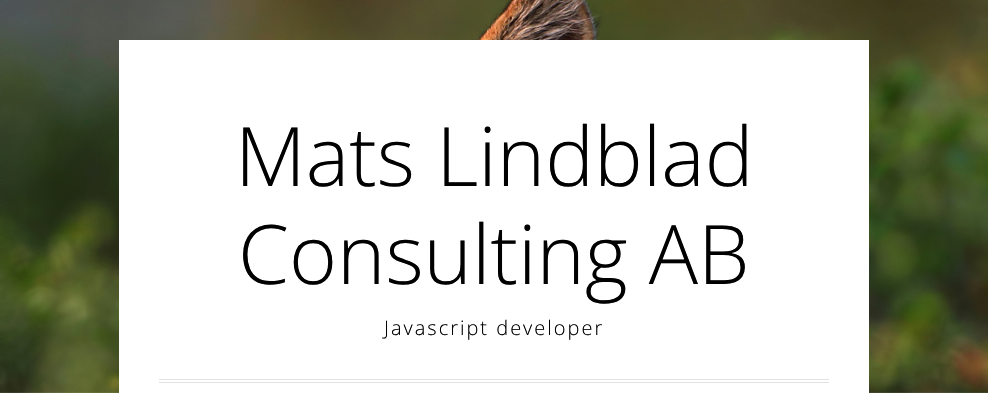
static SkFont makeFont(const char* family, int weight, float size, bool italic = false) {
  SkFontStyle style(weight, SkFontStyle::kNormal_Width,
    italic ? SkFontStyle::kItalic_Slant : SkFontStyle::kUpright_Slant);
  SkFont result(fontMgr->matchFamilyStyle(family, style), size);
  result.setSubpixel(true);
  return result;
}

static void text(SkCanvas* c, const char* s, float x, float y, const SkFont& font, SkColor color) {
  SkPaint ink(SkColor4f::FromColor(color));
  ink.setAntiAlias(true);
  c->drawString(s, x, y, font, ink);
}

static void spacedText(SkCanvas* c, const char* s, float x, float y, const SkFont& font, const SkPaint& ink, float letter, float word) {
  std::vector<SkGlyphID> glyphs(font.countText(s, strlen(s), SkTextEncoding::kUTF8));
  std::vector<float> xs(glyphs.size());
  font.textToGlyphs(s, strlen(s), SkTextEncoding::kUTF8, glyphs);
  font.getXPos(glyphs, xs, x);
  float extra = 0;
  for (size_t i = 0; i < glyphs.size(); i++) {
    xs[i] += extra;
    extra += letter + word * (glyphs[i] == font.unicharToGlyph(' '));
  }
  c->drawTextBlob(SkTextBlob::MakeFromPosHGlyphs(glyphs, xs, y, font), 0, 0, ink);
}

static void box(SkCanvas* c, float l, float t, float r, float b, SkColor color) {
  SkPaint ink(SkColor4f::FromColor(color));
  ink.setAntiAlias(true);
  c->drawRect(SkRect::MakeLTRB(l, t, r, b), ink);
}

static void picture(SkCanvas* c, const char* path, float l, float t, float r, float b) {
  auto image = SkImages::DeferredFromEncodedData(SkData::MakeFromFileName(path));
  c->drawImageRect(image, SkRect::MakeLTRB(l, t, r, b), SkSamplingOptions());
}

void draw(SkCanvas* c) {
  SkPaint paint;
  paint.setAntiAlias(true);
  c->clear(0xffffffff);
  picture(c, "img_01.png", 0, 0, 988, 393);
  box(c, 119, 40, 869, 393, 0xffffffff);
  SkFont face1 = makeFont("Open Sans", 300, 82);
  text(c, "Mats Lindblad", 235, 186, face1, 0xff000000);
  text(c, "Consulting AB", 238, 284, face1, 0xff000000);
  SkFont face2 = makeFont("Open Sans", 300, 20);
  paint.setColor(0xff000000);
  spacedText(c, "Javascript developer", 384, 335, face2, paint, 2, 0);
  box(c, 159, 379, 829, 380, 0xffe2e2e2);
  box(c, 159, 382, 829, 383, 0xffe2e2e2);
}
